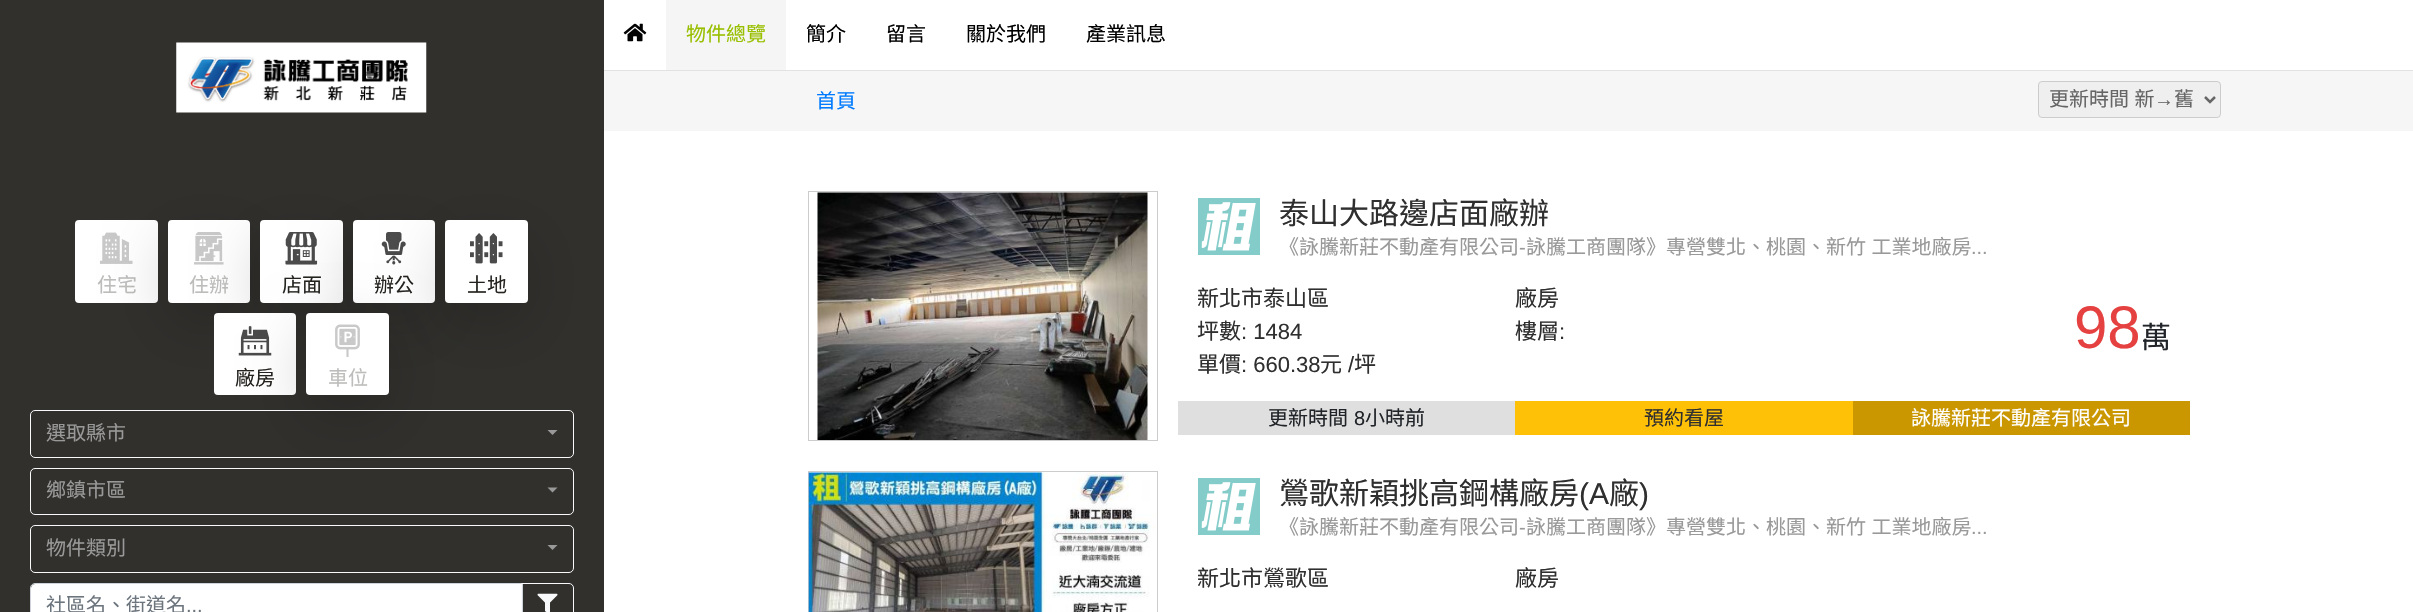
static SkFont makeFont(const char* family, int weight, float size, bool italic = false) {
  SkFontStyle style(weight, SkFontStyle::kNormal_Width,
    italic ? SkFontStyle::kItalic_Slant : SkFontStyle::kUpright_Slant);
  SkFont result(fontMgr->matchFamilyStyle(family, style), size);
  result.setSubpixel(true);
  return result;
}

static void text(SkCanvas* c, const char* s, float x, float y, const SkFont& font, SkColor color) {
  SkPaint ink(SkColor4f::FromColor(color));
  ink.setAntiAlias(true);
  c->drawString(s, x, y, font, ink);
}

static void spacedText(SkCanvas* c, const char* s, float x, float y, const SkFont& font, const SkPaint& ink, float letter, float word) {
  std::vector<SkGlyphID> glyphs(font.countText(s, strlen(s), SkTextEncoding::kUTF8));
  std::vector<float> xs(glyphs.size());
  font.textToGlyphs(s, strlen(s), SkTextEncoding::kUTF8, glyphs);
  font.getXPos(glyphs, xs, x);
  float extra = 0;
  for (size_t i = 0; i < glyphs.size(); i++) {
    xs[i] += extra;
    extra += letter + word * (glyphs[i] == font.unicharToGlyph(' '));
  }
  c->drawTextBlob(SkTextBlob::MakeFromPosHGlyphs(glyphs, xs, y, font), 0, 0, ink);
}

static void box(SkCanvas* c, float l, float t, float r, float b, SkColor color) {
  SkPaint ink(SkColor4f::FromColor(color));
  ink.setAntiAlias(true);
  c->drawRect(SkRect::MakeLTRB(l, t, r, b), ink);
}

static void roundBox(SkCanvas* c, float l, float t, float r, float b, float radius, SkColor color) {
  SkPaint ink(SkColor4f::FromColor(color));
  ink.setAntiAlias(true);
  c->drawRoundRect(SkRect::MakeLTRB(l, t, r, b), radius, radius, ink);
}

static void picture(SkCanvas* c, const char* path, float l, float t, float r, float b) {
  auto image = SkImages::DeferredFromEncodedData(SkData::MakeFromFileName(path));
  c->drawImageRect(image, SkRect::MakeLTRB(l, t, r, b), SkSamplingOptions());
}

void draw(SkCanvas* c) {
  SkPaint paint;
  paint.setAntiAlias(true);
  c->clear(0xffffffff);
  box(c, 0, 0, 604, 612, 0xff31302d);
  picture(c, "img_01.png", 176, 42, 427, 113);
  roundBox(c, 75, 220, 158, 303, 4, 0xffffffff);
  picture(c, "img_02.png", 100, 232, 133, 264);
  SkFont face1 = makeFont("Noto Sans CJK TC", 400, 20);
  text(c, "住宅", 97, 292, face1, 0xffbdbdbc);
  paint.setColor(0x2e000000);
  paint.setMaskFilter(SkMaskFilter::MakeBlur(kNormal_SkBlurStyle, 30));
  c->drawRoundRect(SkRect::MakeLTRB(168, 240, 250, 323), 4, 4, paint);
  paint.setMaskFilter(nullptr);
  roundBox(c, 168, 220, 250, 303, 4, 0xffffffff);
  picture(c, "img_03.png", 194, 232, 224, 265);
  text(c, "住辦", 189, 292, face1, 0xffbdbdbc);
  paint.setMaskFilter(SkMaskFilter::MakeBlur(kNormal_SkBlurStyle, 30));
  c->drawRoundRect(SkRect::MakeLTRB(260, 240, 343, 323), 4, 4, paint);
  paint.setMaskFilter(nullptr);
  roundBox(c, 260, 220, 343, 303, 4, 0xffffffff);
  picture(c, "img_04.png", 285, 232, 318, 265);
  text(c, "店面", 282, 292, face1, 0xff24231f);
  paint.setMaskFilter(SkMaskFilter::MakeBlur(kNormal_SkBlurStyle, 30));
  c->drawRoundRect(SkRect::MakeLTRB(353, 240, 435, 323), 4, 4, paint);
  paint.setMaskFilter(nullptr);
  roundBox(c, 353, 220, 435, 303, 4, 0xffffffff);
  picture(c, "img_05.png", 381, 232, 406, 265);
  text(c, "辦公", 374, 292, face1, 0xff24231f);
  paint.setMaskFilter(SkMaskFilter::MakeBlur(kNormal_SkBlurStyle, 30));
  c->drawRoundRect(SkRect::MakeLTRB(445, 240, 528, 323), 4, 4, paint);
  paint.setMaskFilter(nullptr);
  roundBox(c, 445, 220, 528, 303, 4, 0xffffffff);
  picture(c, "img_06.png", 470, 233, 503, 264);
  text(c, "土地", 467, 292, face1, 0xff24231f);
  roundBox(c, 214, 313, 296, 395, 4, 0xffffffff);
  picture(c, "img_07.png", 238, 326, 272, 356);
  text(c, "廠房", 235, 385, face1, 0xff24231f);
  paint.setMaskFilter(SkMaskFilter::MakeBlur(kNormal_SkBlurStyle, 30));
  c->drawRoundRect(SkRect::MakeLTRB(306, 333, 389, 415), 4, 4, paint);
  paint.setMaskFilter(nullptr);
  roundBox(c, 306, 313, 389, 395, 4, 0xffffffff);
  picture(c, "img_08.png", 335, 324, 360, 357);
  text(c, "車位", 328, 385, face1, 0xffbdbdbc);
  paint.setStyle(SkPaint::kStroke_Style);
  paint.setStrokeWidth(1);
  paint.setColor(0xfff8f9fa);
  c->drawRoundRect(SkRect::MakeLTRB(30.5f, 410.5f, 573.5f, 457.5f), 4.5f, 4.5f, paint);
  text(c, "選取縣市", 46, 440, face1, 0xff999999);
  paint.setStyle(SkPaint::kFill_Style);
  paint.setColor(0xff999999);
  c->drawPath(SkPathBuilder().moveTo(547.5f, 430).lineTo(557.5f, 430).lineTo(552.5f, 435).close().detach(), paint);
  paint.setStyle(SkPaint::kStroke_Style);
  paint.setColor(0xfff8f9fa);
  c->drawRoundRect(SkRect::MakeLTRB(30.5f, 468.5f, 573.5f, 514.5f), 4.5f, 4.5f, paint);
  text(c, "鄉鎮市區", 46, 497, face1, 0xff999999);
  paint.setStyle(SkPaint::kFill_Style);
  paint.setColor(0xff999999);
  c->drawPath(SkPathBuilder().moveTo(547.5f, 487.5f).lineTo(557.5f, 487.5f).lineTo(552.5f, 492.5f).close().detach(), paint);
  paint.setStyle(SkPaint::kStroke_Style);
  paint.setColor(0xfff8f9fa);
  c->drawRoundRect(SkRect::MakeLTRB(30.5f, 525.5f, 573.5f, 572.5f), 4.5f, 4.5f, paint);
  text(c, "物件類別", 46, 555, face1, 0xff999999);
  paint.setStyle(SkPaint::kFill_Style);
  paint.setColor(0xff999999);
  c->drawPath(SkPathBuilder().moveTo(547.5f, 545).lineTo(557.5f, 545).lineTo(552.5f, 550).close().detach(), paint);
  paint.setColor(0xffffffff);
  c->drawPath(SkPathBuilder().moveTo(35, 584).lineTo(521, 584).lineTo(521, 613).lineTo(31, 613).lineTo(31, 588).cubicTo(31, 586, 33, 584, 35, 584).close().detach(), paint);
  paint.setStyle(SkPaint::kStroke_Style);
  paint.setColor(0xffced4da);
  c->drawPath(SkPathBuilder().moveTo(35, 583.5f).lineTo(522.5f, 583.5f).lineTo(522.5f, 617.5f).lineTo(35, 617.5f).cubicTo(32.5f, 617.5f, 30.5f, 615.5f, 30.5f, 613).lineTo(30.5f, 588).cubicTo(30.5f, 585.5f, 32.5f, 583.5f, 35, 583.5f).close().detach(), paint);
  text(c, "社區名、街道名", 46, 612, face1, 0xff6c757d);
  SkFont face2 = makeFont("Liberation Sans", 400, 20);
  text(c, "...", 186, 612, face2, 0xff6c757d);
  paint.setColor(0xfff8f9fa);
  c->drawPath(SkPathBuilder().moveTo(521.5f, 583.5f).lineTo(569, 583.5f).cubicTo(571.5f, 583.5f, 573.5f, 585.5f, 573.5f, 588).lineTo(573.5f, 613).cubicTo(573.5f, 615.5f, 571.5f, 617.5f, 569, 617.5f).lineTo(521.5f, 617.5f).close().detach(), paint);
  picture(c, "img_09.png", 537, 593, 558, 612);
  box(c, 604, 70, 2413, 71, 0xffe2e2e2);
  picture(c, "img_10.png", 623, 23, 647, 42);
  box(c, 666, 0, 786, 70, 0xfff5f5f5);
  text(c, "物件總覽", 686, 41, face1, 0xff98bf00);
  text(c, "簡介", 806, 41, face1, 0xff000000);
  text(c, "留言", 886, 41, face1, 0xff000000);
  text(c, "關於我們", 966, 41, face1, 0xff000000);
  text(c, "產業訊息", 1086, 41, face1, 0xff000000);
  box(c, 604, 71, 2413, 131, 0xfff6f6f6);
  text(c, "首頁", 816, 108, face1, 0xff007bff);
  paint.setStyle(SkPaint::kFill_Style);
  paint.setColor(0xffefefef);
  c->drawRoundRect(SkRect::MakeLTRB(2038.5f, 81.5f, 2220.5f, 117.5f), 3.5f, 3.5f, paint);
  paint.setStyle(SkPaint::kStroke_Style);
  paint.setColor(0xffcccccc);
  c->drawRoundRect(SkRect::MakeLTRB(2038.5f, 81.5f, 2220.5f, 117.5f), 3.5f, 3.5f, paint);
  paint.setStrokeWidth(2.5f);
  paint.setColor(0xff666666);
  c->drawPath(SkPathBuilder().moveTo(2205, 97).lineTo(2210, 102).lineTo(2215, 97).detach(), paint);
  paint.setStyle(SkPaint::kFill_Style);
  spacedText(c, "更新時間 新", 2049, 106, face1, paint, 0, 1);
  text(c, "→", 2154, 106, face2, 0xff666666);
  text(c, "舊", 2174, 106, face1, 0xff666666);
  paint.setStyle(SkPaint::kStroke_Style);
  paint.setStrokeWidth(1);
  paint.setColor(0xffcccccc);
  c->drawRect(SkRect::MakeLTRB(808.5f, 191.5f, 1157.5f, 440.5f), paint);
  picture(c, "img_11.png", 817, 192, 1148, 440);
  picture(c, "img_12.png", 1198, 198, 1260, 255);
  SkFont face3 = makeFont("Noto Sans CJK TC", 400, 30);
  text(c, "泰山大路邊店面廠辦", 1279, 224, face3, 0xff2f2f2f);
  text(c, "《詠騰新莊不動產有限公司", 1279, 254, face1, 0xff999999);
  text(c, "-", 1519, 254, face2, 0xff999999);
  paint.setStyle(SkPaint::kFill_Style);
  paint.setColor(0xff999999);
  spacedText(c, "詠騰工商團隊》專營雙北、桃園、新竹 工業地廠房", 1526, 254, face1, paint, 0, 1);
  text(c, "...", 1971, 254, face2, 0xff999999);
  SkFont face4 = makeFont("Noto Sans CJK TC", 400, 22);
  text(c, "新北市泰山區", 1197, 306, face4, 0xff2f2f2f);
  text(c, "廠房", 1515, 306, face4, 0xff2f2f2f);
  text(c, "坪數", 1197, 339, face4, 0xff2f2f2f);
  SkFont face5 = makeFont("Liberation Sans", 400, 22);
  text(c, ": 1484", 1241, 339, face5, 0xff2f2f2f);
  text(c, "樓層", 1515, 339, face4, 0xff2f2f2f);
  text(c, ":", 1559, 339, face5, 0xff2f2f2f);
  text(c, "單價", 1197, 372, face4, 0xff2f2f2f);
  text(c, ": 660.38", 1241, 372, face5, 0xff2f2f2f);
  text(c, "元", 1320, 372, face4, 0xff2f2f2f);
  text(c, "/", 1348, 372, face5, 0xff2f2f2f);
  text(c, "坪", 1354, 372, face4, 0xff2f2f2f);
  SkFont face6 = makeFont("Liberation Sans", 400, 60);
  text(c, "98", 2074, 348, face6, 0xffe64141);
  text(c, "萬", 2141, 348, face3, 0xff212529);
  box(c, 1178, 401, 1515, 435, 0xffe0dfdf);
  text(c, "更新時間", 1268, 425, face1, 0xff212529);
  text(c, "8", 1354, 425, face2, 0xff212529);
  text(c, "小時前", 1365, 425, face1, 0xff212529);
  box(c, 1515, 401, 1853, 435, 0xffffc107);
  text(c, "預約看屋", 1644, 425, face1, 0xff2f2f2f);
  box(c, 1853, 401, 2190, 435, 0xffca9700);
  text(c, "詠騰新莊不動產有限公司", 1911, 425, face1, 0xffffffff);
  paint.setStyle(SkPaint::kStroke_Style);
  paint.setColor(0xffcccccc);
  c->drawRect(SkRect::MakeLTRB(808.5f, 471.5f, 1157.5f, 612.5f), paint);
  picture(c, "img_13.png", 808, 472, 1156, 612);
  picture(c, "img_12.png", 1198, 478, 1260, 535);
  text(c, "鶯歌新穎挑高鋼構廠房", 1279, 504, face3, 0xff2f2f2f);
  SkFont face7 = makeFont("Liberation Sans", 400, 30);
  text(c, "(A", 1579, 504, face7, 0xff2f2f2f);
  text(c, "廠", 1609, 504, face3, 0xff2f2f2f);
  text(c, ")", 1639, 504, face7, 0xff2f2f2f);
  text(c, "《詠騰新莊不動產有限公司", 1279, 534, face1, 0xff999999);
  text(c, "-", 1519, 534, face2, 0xff999999);
  paint.setStyle(SkPaint::kFill_Style);
  paint.setColor(0xff999999);
  spacedText(c, "詠騰工商團隊》專營雙北、桃園、新竹 工業地廠房", 1526, 534, face1, paint, 0, 1);
  text(c, "...", 1971, 534, face2, 0xff999999);
  text(c, "新北市鶯歌區", 1197, 586, face4, 0xff2f2f2f);
  text(c, "廠房", 1515, 586, face4, 0xff2f2f2f);
}
